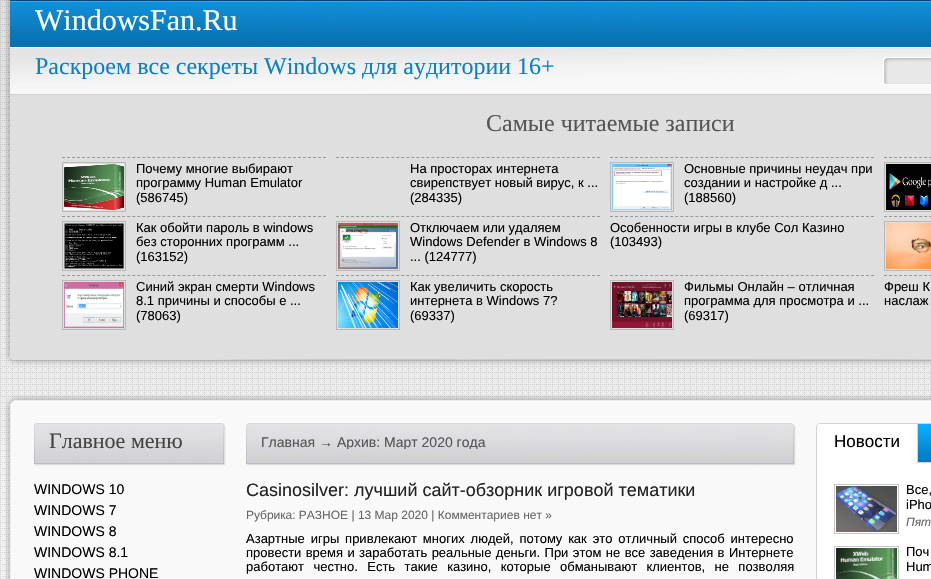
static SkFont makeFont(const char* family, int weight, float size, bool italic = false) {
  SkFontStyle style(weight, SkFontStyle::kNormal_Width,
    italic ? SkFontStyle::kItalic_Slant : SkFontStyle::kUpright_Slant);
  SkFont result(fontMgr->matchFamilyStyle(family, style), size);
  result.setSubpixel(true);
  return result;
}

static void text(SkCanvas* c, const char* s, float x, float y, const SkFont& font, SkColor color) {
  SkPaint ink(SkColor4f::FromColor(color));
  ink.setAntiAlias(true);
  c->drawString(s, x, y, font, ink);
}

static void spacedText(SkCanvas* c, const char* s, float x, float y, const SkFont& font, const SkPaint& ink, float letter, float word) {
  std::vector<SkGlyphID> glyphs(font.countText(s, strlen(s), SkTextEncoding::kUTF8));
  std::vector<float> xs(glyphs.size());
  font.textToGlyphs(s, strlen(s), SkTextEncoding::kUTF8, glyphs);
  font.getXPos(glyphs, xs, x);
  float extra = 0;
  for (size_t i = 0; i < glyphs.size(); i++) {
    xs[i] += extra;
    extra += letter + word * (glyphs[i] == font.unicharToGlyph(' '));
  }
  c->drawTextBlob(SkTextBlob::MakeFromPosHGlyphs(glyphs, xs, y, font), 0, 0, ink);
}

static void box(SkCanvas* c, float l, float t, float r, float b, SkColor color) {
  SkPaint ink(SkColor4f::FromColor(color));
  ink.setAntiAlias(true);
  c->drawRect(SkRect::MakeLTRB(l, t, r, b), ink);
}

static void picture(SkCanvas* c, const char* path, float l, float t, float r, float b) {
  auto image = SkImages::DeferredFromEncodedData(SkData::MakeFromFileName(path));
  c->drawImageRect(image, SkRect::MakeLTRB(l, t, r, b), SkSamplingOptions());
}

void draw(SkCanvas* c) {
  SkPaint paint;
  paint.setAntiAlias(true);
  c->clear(0xfff2f2f2);
  picture(c, "img_01.png", 0, 0, 931, 442);
  picture(c, "img_02.png", 0, 0, 931, 579);
  picture(c, "img_03.png", 5, 0, 931, 47);
  SkFont face1 = makeFont("Liberation Serif", 400, 30);
  text(c, "WindowsFan.Ru", 35, 30, face1, 0xffffffff);
  picture(c, "img_04.png", 5, 47, 931, 95);
  SkFont face2 = makeFont("Liberation Serif", 400, 24);
  text(c, "Раскроем все секреты Windows для аудитории 16+", 35, 74, face2, 0xff0c80c5);
  picture(c, "img_05.png", 5, 95, 931, 347);
  text(c, "Самые читаемые записи", 486, 131, face2, 0xff555555);
  paint.setStyle(SkPaint::kStroke_Style);
  paint.setStrokeWidth(1);
  paint.setColor(0xff999999);
  paint.setPathEffect(SkDashPathEffect::Make({{3, 2.02f}}, 0));
  c->drawPath(SkPathBuilder().moveTo(62, 157.5f).lineTo(326, 157.5f).detach(), paint);
  paint.setPathEffect(nullptr);
  paint.setColor(0xffb9b9b9);
  c->drawRect(SkRect::MakeLTRB(62.5f, 162.5f, 125.5f, 211.5f), paint);
  picture(c, "img_06.png", 64, 164, 124, 210);
  SkFont face3 = makeFont("Liberation Sans", 400, 13);
  text(c, "Почему многие выбирают", 136, 173, face3, 0xff000000);
  text(c, "программу Human Emulator", 136, 187, face3, 0xff000000);
  text(c, "(586745)", 136, 202, face3, 0xff000000);
  paint.setColor(0xff999999);
  paint.setPathEffect(SkDashPathEffect::Make({{3, 2.02f}}, 0));
  c->drawPath(SkPathBuilder().moveTo(336, 157.5f).lineTo(600, 157.5f).detach(), paint);
  paint.setPathEffect(nullptr);
  text(c, "На просторах интернета", 410, 173, face3, 0xff000000);
  text(c, "свирепствует новый вирус, к ...", 410, 187, face3, 0xff000000);
  text(c, "(284335)", 410, 202, face3, 0xff000000);
  paint.setPathEffect(SkDashPathEffect::Make({{3, 2.02f}}, 0));
  c->drawPath(SkPathBuilder().moveTo(610, 157.5f).lineTo(874, 157.5f).detach(), paint);
  paint.setPathEffect(nullptr);
  paint.setColor(0xffb9b9b9);
  c->drawRect(SkRect::MakeLTRB(610.5f, 162.5f, 673.5f, 211.5f), paint);
  picture(c, "img_07.png", 612, 164, 672, 210);
  text(c, "Основные причины неудач при", 684, 173, face3, 0xff000000);
  text(c, "создании и настройке д ...", 684, 187, face3, 0xff000000);
  text(c, "(188560)", 684, 202, face3, 0xff000000);
  paint.setColor(0xff999999);
  paint.setPathEffect(SkDashPathEffect::Make({{3, 2.02f}}, 0));
  c->drawPath(SkPathBuilder().moveTo(884, 157.5f).lineTo(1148, 157.5f).detach(), paint);
  paint.setPathEffect(nullptr);
  paint.setColor(0xffb9b9b9);
  c->drawRect(SkRect::MakeLTRB(884.5f, 162.5f, 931.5f, 211.5f), paint);
  picture(c, "img_08.png", 886, 164, 931, 210);
  paint.setColor(0xff999999);
  paint.setPathEffect(SkDashPathEffect::Make({{3, 2.02f}}, 0));
  c->drawPath(SkPathBuilder().moveTo(62, 216.5f).lineTo(326, 216.5f).detach(), paint);
  paint.setPathEffect(nullptr);
  paint.setColor(0xffb9b9b9);
  c->drawRect(SkRect::MakeLTRB(62.5f, 221.5f, 125.5f, 270.5f), paint);
  picture(c, "img_09.png", 64, 223, 124, 269);
  text(c, "Как обойти пароль в windows", 136, 232, face3, 0xff000000);
  text(c, "без сторонних программ ...", 136, 246, face3, 0xff000000);
  text(c, "(163152)", 136, 261, face3, 0xff000000);
  paint.setColor(0xff999999);
  paint.setPathEffect(SkDashPathEffect::Make({{3, 2.02f}}, 0));
  c->drawPath(SkPathBuilder().moveTo(336, 216.5f).lineTo(600, 216.5f).detach(), paint);
  paint.setPathEffect(nullptr);
  paint.setColor(0xffb9b9b9);
  c->drawRect(SkRect::MakeLTRB(336.5f, 221.5f, 399.5f, 270.5f), paint);
  picture(c, "img_10.png", 338, 223, 398, 269);
  text(c, "Отключаем или удаляем", 410, 232, face3, 0xff000000);
  text(c, "Windows Defender в Windows 8", 410, 246, face3, 0xff000000);
  text(c, "... (124777)", 410, 261, face3, 0xff000000);
  paint.setColor(0xff999999);
  paint.setPathEffect(SkDashPathEffect::Make({{3, 2.02f}}, 0));
  c->drawPath(SkPathBuilder().moveTo(610, 216.5f).lineTo(874, 216.5f).detach(), paint);
  paint.setPathEffect(nullptr);
  text(c, "Особенности игры в клубе Сол Казино", 610, 232, face3, 0xff000000);
  text(c, "(103493)", 610, 246, face3, 0xff000000);
  paint.setPathEffect(SkDashPathEffect::Make({{3, 2.02f}}, 0));
  c->drawPath(SkPathBuilder().moveTo(884, 216.5f).lineTo(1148, 216.5f).detach(), paint);
  paint.setPathEffect(nullptr);
  paint.setColor(0xffb9b9b9);
  c->drawRect(SkRect::MakeLTRB(884.5f, 221.5f, 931.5f, 270.5f), paint);
  picture(c, "img_11.png", 886, 223, 931, 269);
  paint.setColor(0xff999999);
  paint.setPathEffect(SkDashPathEffect::Make({{3, 2.02f}}, 0));
  c->drawPath(SkPathBuilder().moveTo(62, 275.5f).lineTo(326, 275.5f).detach(), paint);
  paint.setPathEffect(nullptr);
  paint.setColor(0xffb9b9b9);
  c->drawRect(SkRect::MakeLTRB(62.5f, 280.5f, 125.5f, 329.5f), paint);
  picture(c, "img_12.png", 64, 282, 124, 328);
  text(c, "Синий экран смерти Windows", 136, 291, face3, 0xff000000);
  text(c, "8.1 причины и способы е ...", 136, 305, face3, 0xff000000);
  text(c, "(78063)", 136, 320, face3, 0xff000000);
  paint.setColor(0xff999999);
  paint.setPathEffect(SkDashPathEffect::Make({{3, 2.02f}}, 0));
  c->drawPath(SkPathBuilder().moveTo(336, 275.5f).lineTo(600, 275.5f).detach(), paint);
  paint.setPathEffect(nullptr);
  paint.setColor(0xffb9b9b9);
  c->drawRect(SkRect::MakeLTRB(336.5f, 280.5f, 399.5f, 329.5f), paint);
  picture(c, "img_13.png", 338, 282, 398, 328);
  text(c, "Как увеличить скорость", 410, 291, face3, 0xff000000);
  text(c, "интернета в Windows 7?", 410, 305, face3, 0xff000000);
  text(c, "(69337)", 410, 320, face3, 0xff000000);
  paint.setColor(0xff999999);
  paint.setPathEffect(SkDashPathEffect::Make({{3, 2.02f}}, 0));
  c->drawPath(SkPathBuilder().moveTo(610, 275.5f).lineTo(874, 275.5f).detach(), paint);
  paint.setPathEffect(nullptr);
  paint.setColor(0xffb9b9b9);
  c->drawRect(SkRect::MakeLTRB(610.5f, 280.5f, 673.5f, 329.5f), paint);
  picture(c, "img_14.png", 612, 282, 672, 328);
  text(c, "Фильмы Онлайн – отличная", 684, 291, face3, 0xff000000);
  text(c, "программа для просмотра и ...", 684, 305, face3, 0xff000000);
  text(c, "(69317)", 684, 320, face3, 0xff000000);
  paint.setColor(0xff999999);
  paint.setPathEffect(SkDashPathEffect::Make({{3, 2.02f}}, 0));
  c->drawPath(SkPathBuilder().moveTo(884, 275.5f).lineTo(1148, 275.5f).detach(), paint);
  paint.setPathEffect(nullptr);
  text(c, "Фреш К", 884, 291, face3, 0xff000000);
  text(c, "наслаж", 884, 305, face3, 0xff000000);
  picture(c, "img_15.png", 5, 347, 931, 365);
  picture(c, "img_16.png", 5, 395, 931, 413);
  picture(c, "img_17.png", 5, 413, 931, 579);
  picture(c, "img_18.png", 34, 423, 226, 466);
  SkFont face4 = makeFont("Liberation Serif", 400, 22);
  text(c, "Главное меню", 49, 448, face4, 0xff444444);
  SkFont face5 = makeFont("Liberation Sans", 400, 14);
  text(c, "WINDOWS 10", 34, 494, face5, 0xff000000);
  text(c, "WINDOWS 7", 34, 515, face5, 0xff000000);
  text(c, "WINDOWS 8", 34, 536, face5, 0xff000000);
  text(c, "WINDOWS 8.1", 34, 557, face5, 0xff000000);
  text(c, "WINDOWS PHONE", 34, 578, face5, 0xff000000);
  picture(c, "img_19.png", 246, 423, 796, 466);
  text(c, "Главная", 261, 447, face5, 0xff555555);
  c->save();
  c->clipRect(SkRect::MakeLTRB(261, 435, 791, 449));
  text(c, "→ Архив: Март 2020 года", 319, 447, face5, 0xff555555);
  c->restore();
  SkFont face6 = makeFont("Liberation Sans", 400, 18);
  text(c, "Casinosilver: лучший сайт-обзорник игровой тематики", 246, 496, face6, 0xff222222);
  SkFont face7 = makeFont("Liberation Sans", 400, 12);
  text(c, "Рубрика: РАЗНОЕ | 13 Мар 2020 | Комментариев нет »", 246, 519, face7, 0xff666666);
  paint.setStyle(SkPaint::kFill_Style);
  paint.setColor(0xff000000);
  spacedText(c, "Азартные игры привлекают многих людей, потому как это отличный способ интересно", 246, 543, face3, paint, 0, 2.25f);
  spacedText(c, "провести время и заработать реальные деньги. При этом не все заведения в Интернете", 246, 557, face3, paint, 0, 0.75f);
  spacedText(c, "работают честно. Есть такие казино, которые обманывают клиентов, не позволяя", 246, 571, face3, paint, 0, 5.75f);
  paint.setColor(0xffffffff);
  c->drawRoundRect(SkRect::MakeLTRB(816.5f, 423.5f, 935.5f, 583.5f), 3.5f, 3.5f, paint);
  paint.setStyle(SkPaint::kStroke_Style);
  paint.setColor(0xffd3d3d3);
  c->drawRoundRect(SkRect::MakeLTRB(816.5f, 423.5f, 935.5f, 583.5f), 3.5f, 3.5f, paint);
  paint.setStyle(SkPaint::kFill_Style);
  paint.setColor(0xffffffff);
  c->drawPath(SkPathBuilder().moveTo(820, 424).lineTo(919, 424).lineTo(919, 462).lineTo(817, 462).lineTo(817, 427).cubicTo(817, 425.5f, 818.5f, 424, 820, 424).close().detach(), paint);
  SkFont face8 = makeFont("Liberation Sans", 400, 17);
  text(c, "Новости", 834, 447, face8, 0xff000000);
  picture(c, "img_20.png", 918, 424, 931, 462);
  box(c, 917, 462, 931, 463, 0xffd3d3d3);
  box(c, 917, 424, 918, 463, 0xffd3d3d3);
  paint.setStyle(SkPaint::kStroke_Style);
  paint.setColor(0xffc7c7c8);
  c->drawRect(SkRect::MakeLTRB(834.5f, 484.5f, 898.5f, 533.5f), paint);
  picture(c, "img_21.png", 836, 486, 897, 532);
  text(c, "Все,", 906, 494, face3, 0xff000000);
  text(c, "iPho", 906, 509, face3, 0xff000000);
  SkFont face9 = makeFont("Liberation Sans", 400, 12, true);
  text(c, "Пят", 906, 526, face9, 0xff666666);
  c->drawRect(SkRect::MakeLTRB(834.5f, 546.5f, 898.5f, 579.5f), paint);
  picture(c, "img_22.png", 836, 548, 897, 579);
  text(c, "Поч", 906, 556, face3, 0xff000000);
  text(c, "Hum", 906, 571, face3, 0xff000000);
}
